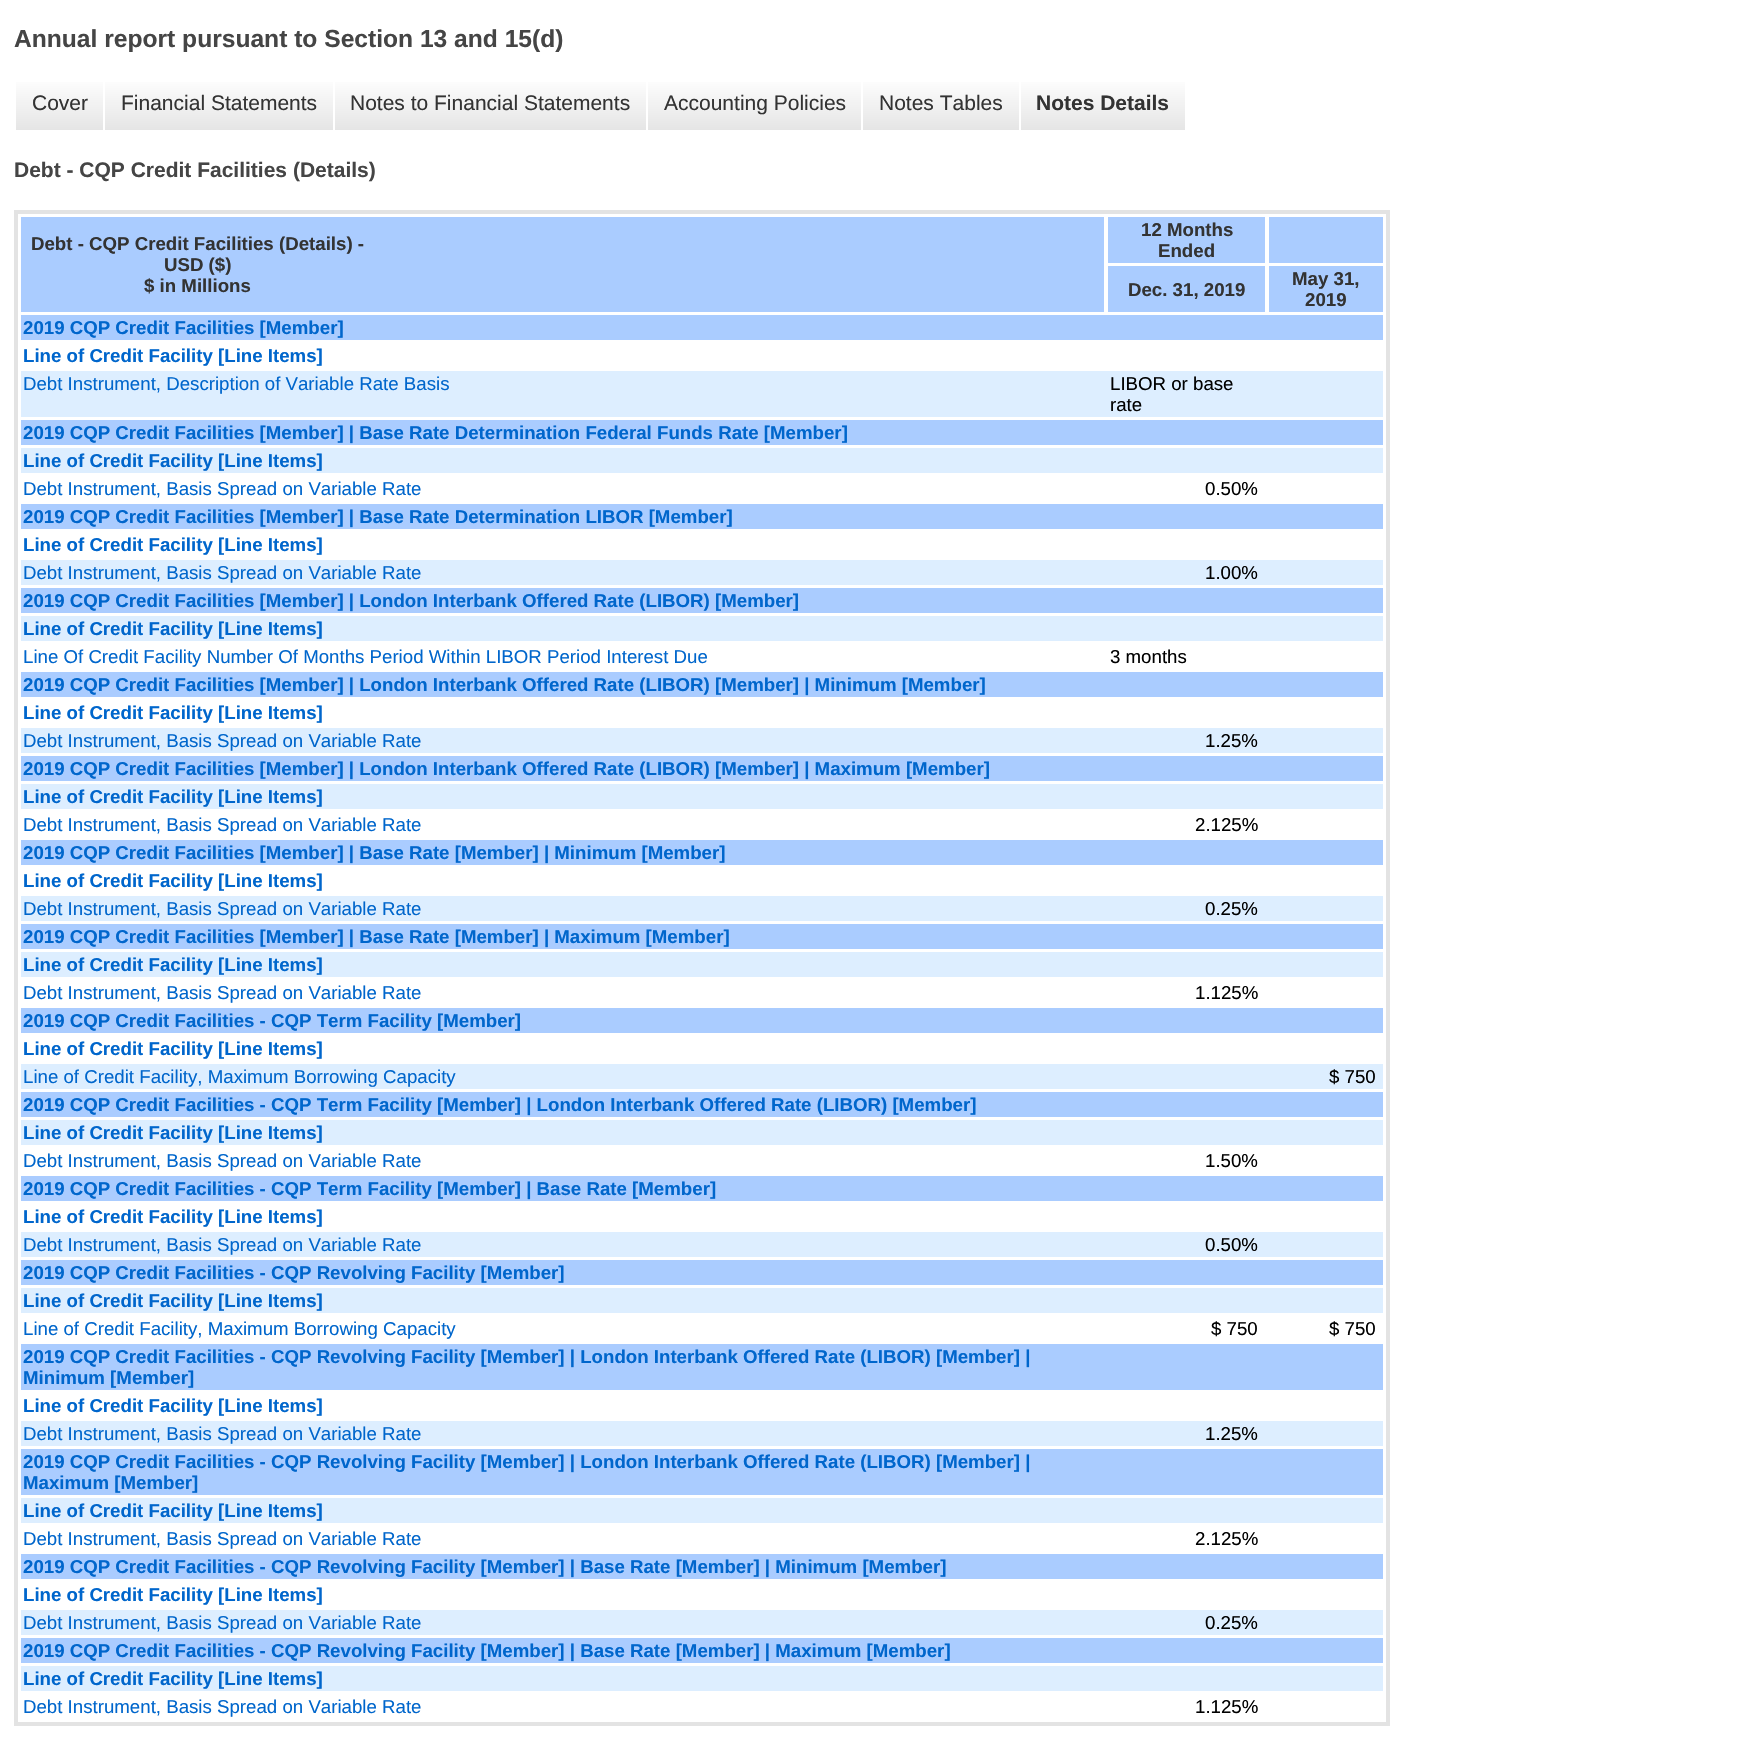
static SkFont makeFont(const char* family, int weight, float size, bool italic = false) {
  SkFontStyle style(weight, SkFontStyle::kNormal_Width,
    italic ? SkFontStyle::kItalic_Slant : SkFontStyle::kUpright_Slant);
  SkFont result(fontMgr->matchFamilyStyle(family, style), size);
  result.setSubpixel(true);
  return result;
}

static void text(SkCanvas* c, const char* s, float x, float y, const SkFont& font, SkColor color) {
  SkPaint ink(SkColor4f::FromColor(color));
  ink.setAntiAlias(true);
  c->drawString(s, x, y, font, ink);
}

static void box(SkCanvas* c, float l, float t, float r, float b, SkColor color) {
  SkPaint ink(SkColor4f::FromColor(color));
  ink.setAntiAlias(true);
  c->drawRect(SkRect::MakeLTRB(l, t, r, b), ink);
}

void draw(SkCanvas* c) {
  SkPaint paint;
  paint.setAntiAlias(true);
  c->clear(0xffffffff);
  SkFont face1 = makeFont("Liberation Sans", 700, 24.6f);
  text(c, "Annual report pursuant to Section 13 and 15(d)", 14, 47, face1, 0xff454545);
  {
    const SkColor colors[] = {0xffffffff, 0xffe5e5e5};
    const float stops[] = {0, 1};
    const SkPoint ends[] = {{60, 77}, {60, 130}};
    paint.setShader(SkGradientShader::MakeLinear(ends, colors, stops, 2, SkTileMode::kClamp));
    paint.setAlpha(255);
  }
  c->drawRect(SkRect::MakeLTRB(16, 82, 103, 130), paint);
  SkFont face2 = makeFont("Liberation Sans", 400, 21);
  text(c, "Cover", 32, 110, face2, 0xff333333);
  {
    const SkColor colors[] = {0xffffffff, 0xffe5e5e5};
    const float stops[] = {0, 1};
    const SkPoint ends[] = {{219, 77}, {219, 130}};
    paint.setShader(SkGradientShader::MakeLinear(ends, colors, stops, 2, SkTileMode::kClamp));
    paint.setAlpha(255);
  }
  c->drawRect(SkRect::MakeLTRB(105, 82, 333, 130), paint);
  text(c, "Financial Statements", 121, 110, face2, 0xff333333);
  {
    const SkColor colors[] = {0xffffffff, 0xffe5e5e5};
    const float stops[] = {0, 1};
    const SkPoint ends[] = {{490, 77}, {490, 130}};
    paint.setShader(SkGradientShader::MakeLinear(ends, colors, stops, 2, SkTileMode::kClamp));
    paint.setAlpha(255);
  }
  c->drawRect(SkRect::MakeLTRB(335, 82, 646, 130), paint);
  text(c, "Notes to Financial Statements", 350, 110, face2, 0xff333333);
  {
    const SkColor colors[] = {0xffffffff, 0xffe5e5e5};
    const float stops[] = {0, 1};
    const SkPoint ends[] = {{754, 77}, {754, 130}};
    paint.setShader(SkGradientShader::MakeLinear(ends, colors, stops, 2, SkTileMode::kClamp));
    paint.setAlpha(255);
  }
  c->drawRect(SkRect::MakeLTRB(648, 82, 861, 130), paint);
  text(c, "Accounting Policies", 664, 110, face2, 0xff333333);
  {
    const SkColor colors[] = {0xffffffff, 0xffe5e5e5};
    const float stops[] = {0, 1};
    const SkPoint ends[] = {{941, 77}, {941, 130}};
    paint.setShader(SkGradientShader::MakeLinear(ends, colors, stops, 2, SkTileMode::kClamp));
    paint.setAlpha(255);
  }
  c->drawRect(SkRect::MakeLTRB(863, 82, 1019, 130), paint);
  text(c, "Notes Tables", 879, 110, face2, 0xff333333);
  {
    const SkColor colors[] = {0xffffffff, 0xffe5e5e5};
    const float stops[] = {0, 1};
    const SkPoint ends[] = {{1103, 77}, {1103, 130}};
    paint.setShader(SkGradientShader::MakeLinear(ends, colors, stops, 2, SkTileMode::kClamp));
    paint.setAlpha(255);
  }
  c->drawRect(SkRect::MakeLTRB(1021, 82, 1185, 130), paint);
  SkFont face3 = makeFont("Liberation Sans", 700, 21);
  text(c, "Notes Details", 1036, 110, face3, 0xff333333);
  text(c, "Debt - CQP Credit Facilities (Details)", 14, 177, face3, 0xff454545);
  paint.setStyle(SkPaint::kStroke_Style);
  paint.setStrokeWidth(4);
  paint.setShader(nullptr);
  paint.setColor(0xffe3e3e3);
  c->drawRect(SkRect::MakeLTRB(16, 212, 1388, 1724), paint);
  box(c, 21, 217, 1104, 312, 0xffaaccff);
  SkFont face4 = makeFont("Liberation Sans", 700, 18.67f);
  text(c, "Debt - CQP Credit Facilities (Details) -", 31, 250, face4, 0xff333333);
  text(c, "USD ($)", 164, 271, face4, 0xff333333);
  text(c, "$ in Millions", 144, 292, face4, 0xff333333);
  box(c, 1108, 217, 1265, 263, 0xffaaccff);
  text(c, "12 Months", 1141, 236, face4, 0xff333333);
  text(c, "Ended", 1158, 257, face4, 0xff333333);
  box(c, 1269, 217, 1383, 263, 0xffaaccff);
  box(c, 1108, 266, 1265, 312, 0xffaaccff);
  text(c, "Dec. 31, 2019", 1128, 296, face4, 0xff333333);
  box(c, 1269, 266, 1383, 312, 0xffaaccff);
  text(c, "May 31,", 1292, 285, face4, 0xff333333);
  text(c, "2019", 1305, 306, face4, 0xff333333);
  box(c, 21, 315, 1383, 340, 0xffaaccff);
  text(c, "2019 CQP Credit Facilities [Member]", 23, 334, face4, 0xff0066cc);
  text(c, "Line of Credit Facility [Line Items]", 23, 362, face4, 0xff0066cc);
  box(c, 21, 371, 1383, 417, 0xffddeeff);
  SkFont face5 = makeFont("Liberation Sans", 400, 18.67f);
  text(c, "Debt Instrument, Description of Variable Rate Basis", 23, 390, face5, 0xff0066cc);
  text(c, "LIBOR or base", 1110, 390, face5, 0xff000000);
  text(c, "rate", 1110, 411, face5, 0xff000000);
  box(c, 21, 420, 1383, 445, 0xffaaccff);
  text(c, "2019 CQP Credit Facilities [Member] | Base Rate Determination Federal Funds Rate [Member]", 23, 439, face4, 0xff0066cc);
  box(c, 21, 448, 1383, 473, 0xffddeeff);
  text(c, "Line of Credit Facility [Line Items]", 23, 467, face4, 0xff0066cc);
  text(c, "Debt Instrument, Basis Spread on Variable Rate", 23, 495, face5, 0xff0066cc);
  text(c, "0.50%", 1205, 495, face5, 0xff000000);
  box(c, 21, 504, 1383, 529, 0xffaaccff);
  text(c, "2019 CQP Credit Facilities [Member] | Base Rate Determination LIBOR [Member]", 23, 523, face4, 0xff0066cc);
  text(c, "Line of Credit Facility [Line Items]", 23, 551, face4, 0xff0066cc);
  box(c, 21, 560, 1383, 585, 0xffddeeff);
  text(c, "Debt Instrument, Basis Spread on Variable Rate", 23, 579, face5, 0xff0066cc);
  text(c, "1.00%", 1205, 579, face5, 0xff000000);
  box(c, 21, 588, 1383, 613, 0xffaaccff);
  text(c, "2019 CQP Credit Facilities [Member] | London Interbank Offered Rate (LIBOR) [Member]", 23, 607, face4, 0xff0066cc);
  box(c, 21, 616, 1383, 641, 0xffddeeff);
  text(c, "Line of Credit Facility [Line Items]", 23, 635, face4, 0xff0066cc);
  text(c, "Line Of Credit Facility Number Of Months Period Within LIBOR Period Interest Due", 23, 663, face5, 0xff0066cc);
  text(c, "3 months", 1110, 663, face5, 0xff000000);
  box(c, 21, 672, 1383, 697, 0xffaaccff);
  text(c, "2019 CQP Credit Facilities [Member] | London Interbank Offered Rate (LIBOR) [Member] | Minimum [Member]", 23, 691, face4, 0xff0066cc);
  text(c, "Line of Credit Facility [Line Items]", 23, 719, face4, 0xff0066cc);
  box(c, 21, 728, 1383, 753, 0xffddeeff);
  text(c, "Debt Instrument, Basis Spread on Variable Rate", 23, 747, face5, 0xff0066cc);
  text(c, "1.25%", 1205, 747, face5, 0xff000000);
  box(c, 21, 756, 1383, 781, 0xffaaccff);
  text(c, "2019 CQP Credit Facilities [Member] | London Interbank Offered Rate (LIBOR) [Member] | Maximum [Member]", 23, 775, face4, 0xff0066cc);
  box(c, 21, 784, 1383, 809, 0xffddeeff);
  text(c, "Line of Credit Facility [Line Items]", 23, 803, face4, 0xff0066cc);
  text(c, "Debt Instrument, Basis Spread on Variable Rate", 23, 831, face5, 0xff0066cc);
  text(c, "2.125%", 1195, 831, face5, 0xff000000);
  box(c, 21, 840, 1383, 865, 0xffaaccff);
  text(c, "2019 CQP Credit Facilities [Member] | Base Rate [Member] | Minimum [Member]", 23, 859, face4, 0xff0066cc);
  text(c, "Line of Credit Facility [Line Items]", 23, 887, face4, 0xff0066cc);
  box(c, 21, 896, 1383, 921, 0xffddeeff);
  text(c, "Debt Instrument, Basis Spread on Variable Rate", 23, 915, face5, 0xff0066cc);
  text(c, "0.25%", 1205, 915, face5, 0xff000000);
  box(c, 21, 924, 1383, 949, 0xffaaccff);
  text(c, "2019 CQP Credit Facilities [Member] | Base Rate [Member] | Maximum [Member]", 23, 943, face4, 0xff0066cc);
  box(c, 21, 952, 1383, 977, 0xffddeeff);
  text(c, "Line of Credit Facility [Line Items]", 23, 971, face4, 0xff0066cc);
  text(c, "Debt Instrument, Basis Spread on Variable Rate", 23, 999, face5, 0xff0066cc);
  text(c, "1.125%", 1195, 999, face5, 0xff000000);
  box(c, 21, 1008, 1383, 1033, 0xffaaccff);
  text(c, "2019 CQP Credit Facilities - CQP Term Facility [Member]", 23, 1027, face4, 0xff0066cc);
  text(c, "Line of Credit Facility [Line Items]", 23, 1055, face4, 0xff0066cc);
  box(c, 21, 1064, 1383, 1089, 0xffddeeff);
  text(c, "Line of Credit Facility, Maximum Borrowing Capacity", 23, 1083, face5, 0xff0066cc);
  text(c, "$ 750", 1329, 1083, face5, 0xff000000);
  box(c, 21, 1092, 1383, 1117, 0xffaaccff);
  text(c, "2019 CQP Credit Facilities - CQP Term Facility [Member] | London Interbank Offered Rate (LIBOR) [Member]", 23, 1111, face4, 0xff0066cc);
  box(c, 21, 1120, 1383, 1145, 0xffddeeff);
  text(c, "Line of Credit Facility [Line Items]", 23, 1139, face4, 0xff0066cc);
  text(c, "Debt Instrument, Basis Spread on Variable Rate", 23, 1167, face5, 0xff0066cc);
  text(c, "1.50%", 1205, 1167, face5, 0xff000000);
  box(c, 21, 1176, 1383, 1201, 0xffaaccff);
  text(c, "2019 CQP Credit Facilities - CQP Term Facility [Member] | Base Rate [Member]", 23, 1195, face4, 0xff0066cc);
  text(c, "Line of Credit Facility [Line Items]", 23, 1223, face4, 0xff0066cc);
  box(c, 21, 1232, 1383, 1257, 0xffddeeff);
  text(c, "Debt Instrument, Basis Spread on Variable Rate", 23, 1251, face5, 0xff0066cc);
  text(c, "0.50%", 1205, 1251, face5, 0xff000000);
  box(c, 21, 1260, 1383, 1285, 0xffaaccff);
  text(c, "2019 CQP Credit Facilities - CQP Revolving Facility [Member]", 23, 1279, face4, 0xff0066cc);
  box(c, 21, 1288, 1383, 1313, 0xffddeeff);
  text(c, "Line of Credit Facility [Line Items]", 23, 1307, face4, 0xff0066cc);
  text(c, "Line of Credit Facility, Maximum Borrowing Capacity", 23, 1335, face5, 0xff0066cc);
  text(c, "$ 750", 1211, 1335, face5, 0xff000000);
  text(c, "$ 750", 1329, 1335, face5, 0xff000000);
  box(c, 21, 1344, 1383, 1390, 0xffaaccff);
  text(c, "2019 CQP Credit Facilities - CQP Revolving Facility [Member] | London Interbank Offered Rate (LIBOR) [Member] |", 23, 1363, face4, 0xff0066cc);
  text(c, "Minimum [Member]", 23, 1384, face4, 0xff0066cc);
  text(c, "Line of Credit Facility [Line Items]", 23, 1412, face4, 0xff0066cc);
  box(c, 21, 1421, 1383, 1446, 0xffddeeff);
  text(c, "Debt Instrument, Basis Spread on Variable Rate", 23, 1440, face5, 0xff0066cc);
  text(c, "1.25%", 1205, 1440, face5, 0xff000000);
  box(c, 21, 1449, 1383, 1495, 0xffaaccff);
  text(c, "2019 CQP Credit Facilities - CQP Revolving Facility [Member] | London Interbank Offered Rate (LIBOR) [Member] |", 23, 1468, face4, 0xff0066cc);
  text(c, "Maximum [Member]", 23, 1489, face4, 0xff0066cc);
  box(c, 21, 1498, 1383, 1523, 0xffddeeff);
  text(c, "Line of Credit Facility [Line Items]", 23, 1517, face4, 0xff0066cc);
  text(c, "Debt Instrument, Basis Spread on Variable Rate", 23, 1545, face5, 0xff0066cc);
  text(c, "2.125%", 1195, 1545, face5, 0xff000000);
  box(c, 21, 1554, 1383, 1579, 0xffaaccff);
  text(c, "2019 CQP Credit Facilities - CQP Revolving Facility [Member] | Base Rate [Member] | Minimum [Member]", 23, 1573, face4, 0xff0066cc);
  text(c, "Line of Credit Facility [Line Items]", 23, 1601, face4, 0xff0066cc);
  box(c, 21, 1610, 1383, 1635, 0xffddeeff);
  text(c, "Debt Instrument, Basis Spread on Variable Rate", 23, 1629, face5, 0xff0066cc);
  text(c, "0.25%", 1205, 1629, face5, 0xff000000);
  box(c, 21, 1638, 1383, 1663, 0xffaaccff);
  text(c, "2019 CQP Credit Facilities - CQP Revolving Facility [Member] | Base Rate [Member] | Maximum [Member]", 23, 1657, face4, 0xff0066cc);
  box(c, 21, 1666, 1383, 1691, 0xffddeeff);
  text(c, "Line of Credit Facility [Line Items]", 23, 1685, face4, 0xff0066cc);
  text(c, "Debt Instrument, Basis Spread on Variable Rate", 23, 1713, face5, 0xff0066cc);
  text(c, "1.125%", 1195, 1713, face5, 0xff000000);
}
